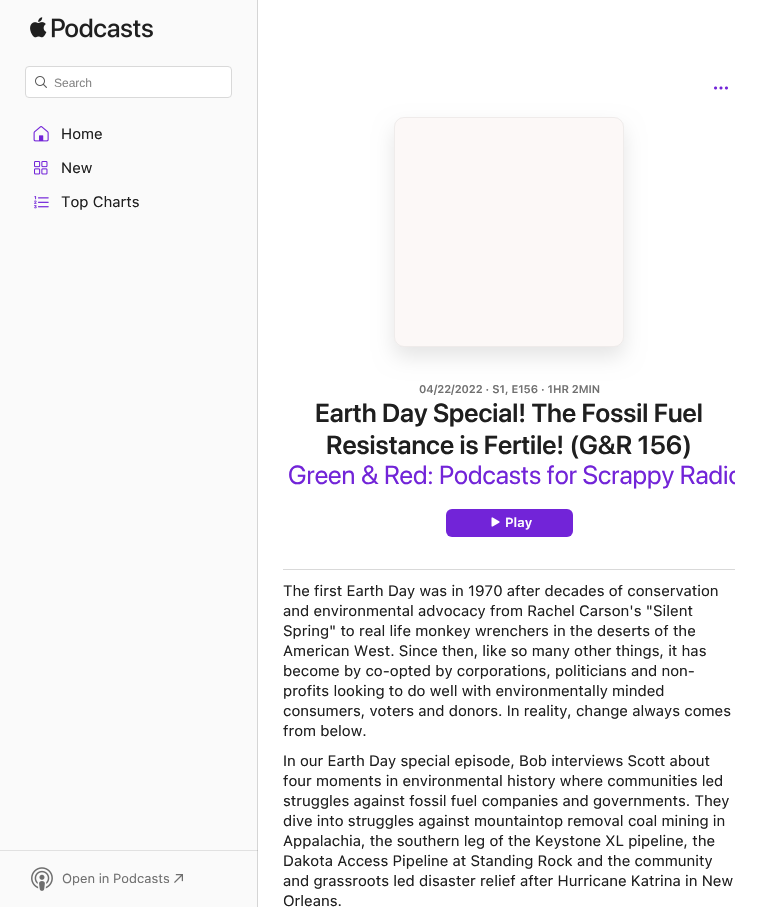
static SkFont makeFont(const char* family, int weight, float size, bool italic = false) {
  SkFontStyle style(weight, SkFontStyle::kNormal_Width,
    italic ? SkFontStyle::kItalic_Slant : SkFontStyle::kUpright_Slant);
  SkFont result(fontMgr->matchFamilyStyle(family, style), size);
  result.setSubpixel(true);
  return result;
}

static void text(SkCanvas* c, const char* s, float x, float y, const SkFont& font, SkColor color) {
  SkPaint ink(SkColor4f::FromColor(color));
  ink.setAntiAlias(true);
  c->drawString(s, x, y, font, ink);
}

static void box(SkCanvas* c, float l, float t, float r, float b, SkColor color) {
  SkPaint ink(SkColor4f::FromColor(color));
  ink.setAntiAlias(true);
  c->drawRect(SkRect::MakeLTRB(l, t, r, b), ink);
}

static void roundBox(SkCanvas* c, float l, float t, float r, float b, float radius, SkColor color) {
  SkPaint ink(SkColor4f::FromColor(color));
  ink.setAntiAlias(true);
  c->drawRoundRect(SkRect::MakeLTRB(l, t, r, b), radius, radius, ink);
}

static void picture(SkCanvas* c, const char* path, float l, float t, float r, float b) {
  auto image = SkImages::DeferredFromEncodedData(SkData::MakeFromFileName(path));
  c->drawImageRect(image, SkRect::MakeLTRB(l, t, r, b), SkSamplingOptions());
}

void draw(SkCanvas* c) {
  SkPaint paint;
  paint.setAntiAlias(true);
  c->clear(0xffffffff);
  box(c, 0, 0, 257, 907, 0xfffafafa);
  box(c, 0, 850, 258, 851, 0xffe1e1e1);
  box(c, 257, 0, 258, 907, 0xffd5d5d5);
  box(c, 257, 850, 258, 851, 0xffc0c0c0);
  picture(c, "img_01.png", 30, 17, 153, 38);
  paint.setColor(0xffffffff);
  c->drawRoundRect(SkRect::MakeLTRB(25.5f, 66.5f, 231.5f, 97.5f), 3.5f, 3.5f, paint);
  paint.setStyle(SkPaint::kStroke_Style);
  paint.setStrokeWidth(1);
  paint.setColor(0xffd9d9d9);
  c->drawRoundRect(SkRect::MakeLTRB(25.5f, 66.5f, 231.5f, 97.5f), 3.5f, 3.5f, paint);
  picture(c, "img_02.png", 35, 76, 47, 88);
  SkFont face1 = makeFont("Liberation Sans", 400, 12);
  text(c, "Search", 54, 87, face1, 0xff858585);
  picture(c, "img_03.png", 33, 126, 49, 142);
  SkFont face2 = makeFont("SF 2", 400, 15);
  text(c, "Home", 61, 139, face2, 0xff1f1f1f);
  picture(c, "img_04.png", 34, 161, 48, 175);
  text(c, "New", 61, 173, face2, 0xff1f1f1f);
  picture(c, "img_05.png", 34, 196, 49, 209);
  text(c, "Top Charts", 61, 207, face2, 0xff1f1f1f);
  picture(c, "img_06.png", 31, 867, 53, 891);
  SkFont face3 = makeFont("SF 2", 400, 13);
  text(c, "Open in Podcasts", 62, 883, face3, 0xff707070);
  picture(c, "img_07.png", 174, 874, 183, 883);
  picture(c, "img_08.png", 714, 86, 728, 90);
  paint.setStyle(SkPaint::kFill_Style);
  paint.setColor(0x1a000000);
  paint.setMaskFilter(SkMaskFilter::MakeBlur(kNormal_SkBlurStyle, 10));
  c->drawRoundRect(SkRect::MakeLTRB(394, 127, 624, 357), 10, 10, paint);
  paint.setMaskFilter(nullptr);
  roundBox(c, 394, 117, 624, 347, 10, 0xfffcf8f7);
  paint.setStyle(SkPaint::kStroke_Style);
  paint.setColor(0x1a808080);
  c->drawRoundRect(SkRect::MakeLTRB(394.5f, 117.5f, 623.5f, 346.5f), 9.5f, 9.5f, paint);
  SkFont face4 = makeFont("SF", 600, 11);
  text(c, "04/22/2022 · S1, E156 · 1HR 2MIN", 419, 393, face4, 0xff707070);
  SkFont face5 = makeFont("SF 2", 600, 26);
  text(c, "Earth Day Special! The Fossil Fuel", 315, 422, face5, 0xff1f1f1f);
  text(c, "Resistance is Fertile! (G&R 156)", 326, 454, face5, 0xff1f1f1f);
  c->save();
  c->clipRect(SkRect::MakeLTRB(283, 454, 735, 496));
  SkFont face6 = makeFont("SF", 400, 26);
  text(c, "Green & Red: Podcasts for Scrappy Radic", 288, 484, face6, 0xff7224d8);
  c->restore();
  roundBox(c, 446, 509, 573, 537, 6, 0xff7224d8);
  picture(c, "img_09.png", 491, 517, 500, 527);
  SkFont face7 = makeFont("SF", 600, 13);
  text(c, "Play", 505, 527, face7, 0xffffffff);
  box(c, 283, 569, 735, 570, 0xffd9d9d9);
  text(c, "The first Earth Day was in 1970 after decades of conservation", 283, 596, face2, 0xff1f1f1f);
  text(c, "and environmental advocacy from Rachel Carson's \"Silent", 283, 616, face2, 0xff1f1f1f);
  text(c, "Spring\" to real life monkey wrenchers in the deserts of the", 283, 636, face2, 0xff1f1f1f);
  text(c, "American West. Since then, like so many other things, it has", 283, 656, face2, 0xff1f1f1f);
  text(c, "become by co-opted by corporations, politicians and non-", 283, 676, face2, 0xff1f1f1f);
  text(c, "profits looking to do well with environmentally minded", 283, 696, face2, 0xff1f1f1f);
  text(c, "consumers, voters and donors. In reality, change always comes", 283, 716, face2, 0xff1f1f1f);
  text(c, "from below.", 283, 736, face2, 0xff1f1f1f);
  text(c, "In our Earth Day special episode, Bob interviews Scott about", 283, 766, face2, 0xff1f1f1f);
  text(c, "four moments in environmental history where communities led", 283, 786, face2, 0xff1f1f1f);
  text(c, "struggles against fossil fuel companies and governments. They", 283, 806, face2, 0xff1f1f1f);
  text(c, "dive into struggles against mountaintop removal coal mining in", 283, 826, face2, 0xff1f1f1f);
  text(c, "Appalachia, the southern leg of the Keystone XL pipeline, the", 283, 846, face2, 0xff1f1f1f);
  text(c, "Dakota Access Pipeline at Standing Rock and the community", 283, 866, face2, 0xff1f1f1f);
  text(c, "and grassroots led disaster relief after Hurricane Katrina in New", 283, 886, face2, 0xff1f1f1f);
  text(c, "Orleans.", 283, 906, face2, 0xff1f1f1f);
}
